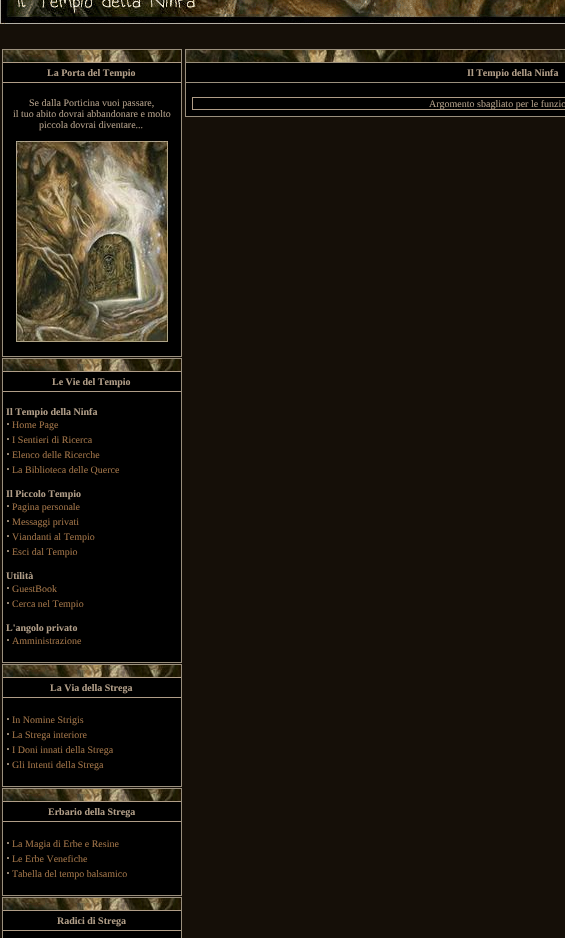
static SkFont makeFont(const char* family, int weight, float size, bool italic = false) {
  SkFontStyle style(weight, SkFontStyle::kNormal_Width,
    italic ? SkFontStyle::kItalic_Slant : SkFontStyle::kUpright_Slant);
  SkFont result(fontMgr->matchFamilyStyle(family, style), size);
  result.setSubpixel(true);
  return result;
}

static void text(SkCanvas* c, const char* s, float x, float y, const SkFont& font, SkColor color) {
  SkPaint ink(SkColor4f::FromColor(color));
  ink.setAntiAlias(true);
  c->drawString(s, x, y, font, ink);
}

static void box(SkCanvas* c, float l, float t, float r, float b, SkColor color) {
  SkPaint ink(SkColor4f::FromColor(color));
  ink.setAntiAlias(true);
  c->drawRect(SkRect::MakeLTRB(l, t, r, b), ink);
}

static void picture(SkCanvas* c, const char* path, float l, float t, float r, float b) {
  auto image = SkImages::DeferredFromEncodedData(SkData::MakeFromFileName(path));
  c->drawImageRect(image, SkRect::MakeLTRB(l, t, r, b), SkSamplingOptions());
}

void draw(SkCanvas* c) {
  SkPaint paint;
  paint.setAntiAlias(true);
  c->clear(0xff150f08);
  picture(c, "img_01.png", 0, 0, 565, 25);
  paint.setStyle(SkPaint::kStroke_Style);
  paint.setStrokeWidth(1);
  paint.setColor(0xff9a8f7d);
  c->drawRect(SkRect::MakeLTRB(2.5f, 49.5f, 181.5f, 356.5f), paint);
  picture(c, "img_02.png", 3, 50, 181, 62);
  box(c, 3, 62, 181, 63, 0xffb09d87);
  box(c, 3, 63, 181, 82, 0xff000000);
  box(c, 3, 82, 181, 83, 0xffb09d87);
  SkFont face1 = makeFont("Liberation Serif", 700, 10);
  text(c, "La Porta del Tempio", 47, 76, face1, 0xffb09d87);
  box(c, 3, 83, 181, 356, 0xff000000);
  SkFont face2 = makeFont("Liberation Serif", 400, 10);
  text(c, "Se dalla Porticina vuoi passare,", 29, 106, face2, 0xffb09d87);
  text(c, "il tuo abito dovrai abbandonare e molto", 13, 117, face2, 0xffb09d87);
  text(c, "piccola dovrai diventare...", 39, 128, face2, 0xffb09d87);
  picture(c, "img_03.png", 16, 141, 168, 342);
  c->drawRect(SkRect::MakeLTRB(2.5f, 358.5f, 181.5f, 662.5f), paint);
  picture(c, "img_02.png", 3, 359, 181, 371);
  box(c, 3, 371, 181, 372, 0xffb09d87);
  box(c, 3, 372, 181, 391, 0xff000000);
  box(c, 3, 391, 181, 392, 0xffb09d87);
  text(c, "Le Vie del Tempio", 52, 385, face1, 0xffb09d87);
  box(c, 3, 392, 181, 662, 0xff000000);
  text(c, "Il Tempio della Ninfa", 6, 415, face1, 0xffb09d87);
  SkFont face3 = makeFont("Liberation Serif", 700, 12);
  text(c, "·", 6, 428, face3, 0xffb09d87);
  text(c, "Home Page", 12, 428, face2, 0xff9d7146);
  text(c, "·", 6, 443, face3, 0xffb09d87);
  text(c, "I Sentieri di Ricerca", 12, 443, face2, 0xff9d7146);
  text(c, "·", 6, 458, face3, 0xffb09d87);
  text(c, "Elenco delle Ricerche", 12, 458, face2, 0xff9d7146);
  text(c, "·", 6, 473, face3, 0xffb09d87);
  text(c, "La Biblioteca delle Querce", 12, 473, face2, 0xff9d7146);
  text(c, "Il Piccolo Tempio", 6, 497, face1, 0xffb09d87);
  text(c, "·", 6, 510, face3, 0xffb09d87);
  text(c, "Pagina personale", 12, 510, face2, 0xff9d7146);
  text(c, "·", 6, 525, face3, 0xffb09d87);
  text(c, "Messaggi privati", 12, 525, face2, 0xff9d7146);
  text(c, "·", 6, 540, face3, 0xffb09d87);
  text(c, "Viandanti al Tempio", 12, 540, face2, 0xff9d7146);
  text(c, "·", 6, 555, face3, 0xffb09d87);
  text(c, "Esci dal Tempio", 12, 555, face2, 0xff9d7146);
  text(c, "Utilità", 6, 579, face1, 0xffb09d87);
  text(c, "·", 6, 592, face3, 0xffb09d87);
  text(c, "GuestBook", 12, 592, face2, 0xff9d7146);
  text(c, "·", 6, 607, face3, 0xffb09d87);
  text(c, "Cerca nel Tempio", 12, 607, face2, 0xff9d7146);
  text(c, "L'angolo privato", 6, 631, face1, 0xffb09d87);
  text(c, "·", 6, 644, face3, 0xffb09d87);
  text(c, "Amministrazione", 12, 644, face2, 0xff9d7146);
  c->drawRect(SkRect::MakeLTRB(2.5f, 664.5f, 181.5f, 786.5f), paint);
  picture(c, "img_02.png", 3, 665, 181, 677);
  box(c, 3, 677, 181, 678, 0xffb09d87);
  box(c, 3, 678, 181, 697, 0xff000000);
  box(c, 3, 697, 181, 698, 0xffb09d87);
  text(c, "La Via della Strega", 50, 691, face1, 0xffb09d87);
  box(c, 3, 698, 181, 786, 0xff000000);
  text(c, "·", 6, 723, face3, 0xffb09d87);
  text(c, "In Nomine Strigis", 12, 723, face2, 0xff9d7146);
  text(c, "·", 6, 738, face3, 0xffb09d87);
  text(c, "La Strega interiore", 12, 738, face2, 0xff9d7146);
  text(c, "·", 6, 753, face3, 0xffb09d87);
  text(c, "I Doni innati della Strega", 12, 753, face2, 0xff9d7146);
  text(c, "·", 6, 768, face3, 0xffb09d87);
  text(c, "Gli Intenti della Strega", 12, 768, face2, 0xff9d7146);
  c->drawRect(SkRect::MakeLTRB(2.5f, 788.5f, 181.5f, 895.5f), paint);
  picture(c, "img_02.png", 3, 789, 181, 801);
  box(c, 3, 801, 181, 802, 0xffb09d87);
  box(c, 3, 802, 181, 821, 0xff000000);
  box(c, 3, 821, 181, 822, 0xffb09d87);
  text(c, "Erbario della Strega", 48, 815, face1, 0xffb09d87);
  box(c, 3, 822, 181, 895, 0xff000000);
  text(c, "·", 6, 847, face3, 0xffb09d87);
  text(c, "La Magia di Erbe e Resine", 12, 847, face2, 0xff9d7146);
  text(c, "·", 6, 862, face3, 0xffb09d87);
  text(c, "Le Erbe Venefiche", 12, 862, face2, 0xff9d7146);
  text(c, "·", 6, 877, face3, 0xffb09d87);
  text(c, "Tabella del tempo balsamico", 12, 877, face2, 0xff9d7146);
  c->drawRect(SkRect::MakeLTRB(2.5f, 897.5f, 181.5f, 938.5f), paint);
  picture(c, "img_02.png", 3, 898, 181, 910);
  box(c, 3, 910, 181, 911, 0xffb09d87);
  box(c, 3, 911, 181, 930, 0xff000000);
  box(c, 3, 930, 181, 931, 0xffb09d87);
  text(c, "Radici di Strega", 57, 924, face1, 0xffb09d87);
  box(c, 3, 931, 181, 938, 0xff000000);
  c->drawRect(SkRect::MakeLTRB(185.5f, 49.5f, 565.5f, 116.5f), paint);
  picture(c, "img_04.png", 186, 50, 565, 62);
  box(c, 186, 62, 565, 63, 0xff9a8f7d);
  box(c, 186, 63, 565, 82, 0xff000000);
  box(c, 186, 82, 565, 83, 0xff9a8f7d);
  text(c, "Il Tempio della Ninfa", 467, 76, face1, 0xffb09d87);
  box(c, 186, 83, 565, 116, 0xff000000);
  paint.setColor(0xffb09d87);
  c->drawRect(SkRect::MakeLTRB(192.5f, 97.5f, 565.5f, 109.5f), paint);
  text(c, "Argomento sbagliato per le funzio", 429, 107, face2, 0xffb09d87);
}
